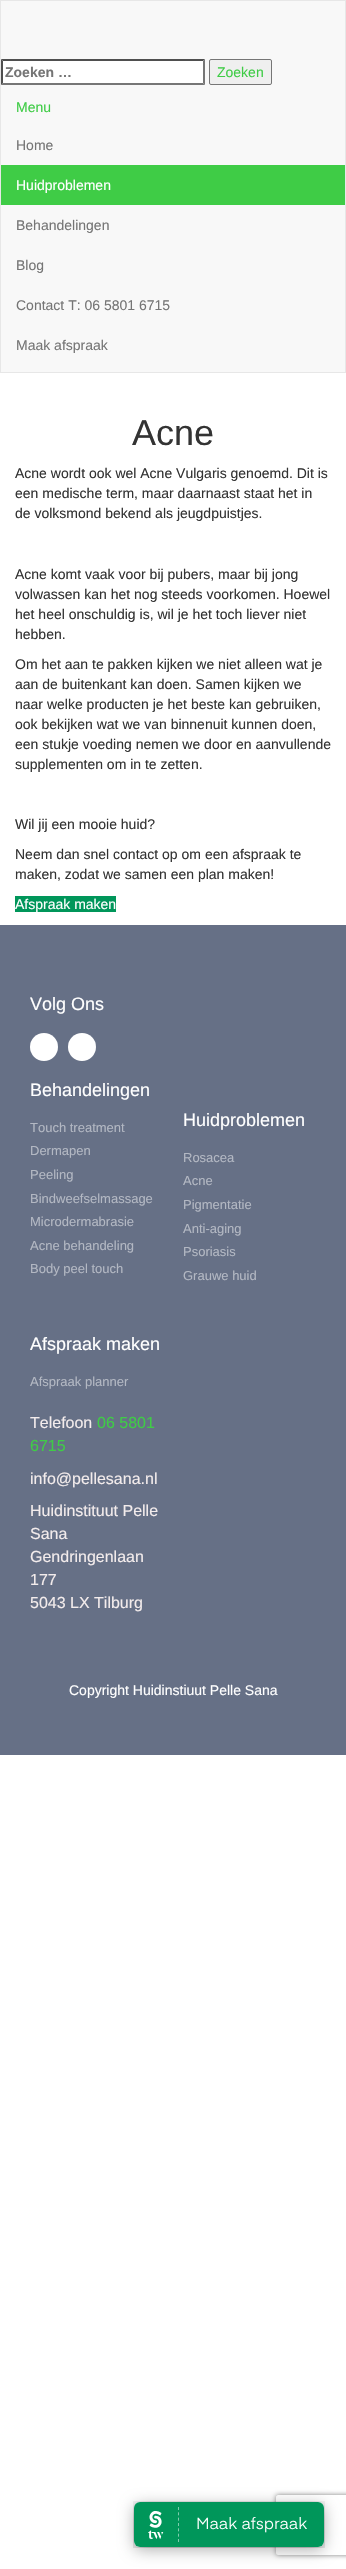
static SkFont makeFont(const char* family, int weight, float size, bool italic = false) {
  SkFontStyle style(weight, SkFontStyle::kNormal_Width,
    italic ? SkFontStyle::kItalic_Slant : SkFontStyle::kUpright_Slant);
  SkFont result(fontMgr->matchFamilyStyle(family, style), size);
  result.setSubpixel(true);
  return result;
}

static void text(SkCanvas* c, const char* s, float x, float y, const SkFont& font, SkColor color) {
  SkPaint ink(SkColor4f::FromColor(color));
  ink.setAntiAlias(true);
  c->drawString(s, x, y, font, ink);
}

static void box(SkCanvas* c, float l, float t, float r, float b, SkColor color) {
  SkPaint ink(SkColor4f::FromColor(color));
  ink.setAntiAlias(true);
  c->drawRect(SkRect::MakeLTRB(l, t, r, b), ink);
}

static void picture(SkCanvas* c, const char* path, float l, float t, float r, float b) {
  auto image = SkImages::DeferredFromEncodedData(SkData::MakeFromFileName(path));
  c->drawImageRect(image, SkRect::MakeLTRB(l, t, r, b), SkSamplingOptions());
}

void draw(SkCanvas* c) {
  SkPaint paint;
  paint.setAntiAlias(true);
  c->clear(0xffffffff);
  paint.setColor(0xfff8f8f8);
  c->drawRect(SkRect::MakeLTRB(0.5f, 0.5f, 345.5f, 372.5f), paint);
  paint.setStyle(SkPaint::kStroke_Style);
  paint.setStrokeWidth(1);
  paint.setColor(0xffe7e7e7);
  c->drawRect(SkRect::MakeLTRB(0.5f, 0.5f, 345.5f, 372.5f), paint);
  box(c, 1, 59, 205, 85, 0xffffffff);
  paint.setStyle(SkPaint::kFill_Style);
  paint.setColor(0xff4f4f4f);
  c->drawPath(SkPathBuilder().moveTo(1, 59).lineTo(205, 59).lineTo(203, 61).lineTo(3, 61).close().detach(), paint);
  paint.setColor(0xff767676);
  c->drawPath(SkPathBuilder().moveTo(205, 59).lineTo(205, 85).lineTo(203, 83).lineTo(203, 61).close().detach(), paint);
  c->drawPath(SkPathBuilder().moveTo(205, 85).lineTo(1, 85).lineTo(3, 83).lineTo(203, 83).close().detach(), paint);
  paint.setColor(0xff4f4f4f);
  c->drawPath(SkPathBuilder().moveTo(1, 85).lineTo(1, 59).lineTo(3, 61).lineTo(3, 83).close().detach(), paint);
  SkFont face1 = makeFont("Liberation Sans", 700, 14);
  text(c, "Zoeken …", 5, 77, face1, 0xff757575);
  paint.setColor(0xffefefef);
  c->drawRoundRect(SkRect::MakeLTRB(209.5f, 59.5f, 271.5f, 84.5f), 1.5f, 1.5f, paint);
  paint.setStyle(SkPaint::kStroke_Style);
  paint.setColor(0xff767676);
  c->drawRoundRect(SkRect::MakeLTRB(209.5f, 59.5f, 271.5f, 84.5f), 1.5f, 1.5f, paint);
  SkFont face2 = makeFont("Liberation Sans", 400, 14);
  text(c, "Zoeken", 217, 77, face2, 0xff3fcc46);
  text(c, "Menu", 16, 112, face2, 0xff3fcc46);
  text(c, "Home", 16, 150, face2, 0xff757575);
  box(c, 1, 165, 345, 205, 0xff3fcc46);
  text(c, "Huidproblemen", 16, 190, face2, 0xffffffff);
  text(c, "Behandelingen", 16, 230, face2, 0xff757575);
  text(c, "Blog", 16, 270, face2, 0xff757575);
  text(c, "Contact T: 06 5801 6715", 16, 310, face2, 0xff757575);
  text(c, "Maak afspraak", 16, 350, face2, 0xff757575);
  SkFont face3 = makeFont("Liberation Sans", 400, 36);
  text(c, "Acne", 132, 445, face3, 0xff333333);
  text(c, "Acne wordt ook wel Acne Vulgaris genoemd. Dit is", 15, 478, face2, 0xff333333);
  text(c, "een medische term, maar daarnaast staat het in", 15, 498, face2, 0xff333333);
  text(c, "de volksmond bekend als jeugdpuistjes.", 15, 518, face2, 0xff333333);
  text(c, "Acne komt vaak voor bij pubers, maar bij jong", 15, 579, face2, 0xff333333);
  text(c, "volwassen kan het nog steeds voorkomen. Hoewel", 15, 599, face2, 0xff333333);
  text(c, "het heel onschuldig is, wil je het toch liever niet", 15, 619, face2, 0xff333333);
  text(c, "hebben.", 15, 639, face2, 0xff333333);
  text(c, "Om het aan te pakken kijken we niet alleen wat je", 15, 669, face2, 0xff333333);
  text(c, "aan de buitenkant kan doen. Samen kijken we", 15, 689, face2, 0xff333333);
  text(c, "naar welke producten je het beste kan gebruiken,", 15, 709, face2, 0xff333333);
  text(c, "ook bekijken wat we van binnenuit kunnen doen,", 15, 729, face2, 0xff333333);
  text(c, "een stukje voeding nemen we door en aanvullende", 15, 749, face2, 0xff333333);
  text(c, "supplementen om in te zetten.", 15, 769, face2, 0xff333333);
  text(c, "Wil jij een mooie huid?", 15, 829, face2, 0xff333333);
  text(c, "Neem dan snel contact op om een afspraak te", 15, 859, face2, 0xff333333);
  text(c, "maken, zodat we samen een plan maken!", 15, 879, face2, 0xff333333);
  box(c, 15, 896, 116, 912, 0xff00965a);
  text(c, "Afspraak maken", 15, 909, face2, 0xffffffff);
  box(c, 0, 925, 346, 1755, 0xff667086);
  SkFont face4 = makeFont("Liberation Sans", 400, 18);
  text(c, "Volg Ons", 30, 1010, face4, 0xffffffff);
  paint.setStyle(SkPaint::kFill_Style);
  paint.setColor(0xffffffff);
  c->drawCircle(44, 1047, 14, paint);
  c->drawCircle(82, 1047, 14, paint);
  text(c, "Behandelingen", 30, 1096, face4, 0xffffffff);
  SkFont face5 = makeFont("Liberation Sans", 400, 13);
  text(c, "Touch treatment", 30, 1132, face5, 0xffb3b8c3);
  text(c, "Dermapen", 30, 1155, face5, 0xffb3b8c3);
  text(c, "Peeling", 30, 1179, face5, 0xffb3b8c3);
  text(c, "Bindweefselmassage", 30, 1203, face5, 0xffb3b8c3);
  text(c, "Microdermabrasie", 30, 1226, face5, 0xffb3b8c3);
  text(c, "Acne behandeling", 30, 1250, face5, 0xffb3b8c3);
  text(c, "Body peel touch", 30, 1273, face5, 0xffb3b8c3);
  text(c, "Huidproblemen", 183, 1126, face4, 0xffffffff);
  text(c, "Rosacea", 183, 1162, face5, 0xffb3b8c3);
  text(c, "Acne", 183, 1185, face5, 0xffb3b8c3);
  text(c, "Pigmentatie", 183, 1209, face5, 0xffb3b8c3);
  text(c, "Anti-aging", 183, 1233, face5, 0xffb3b8c3);
  text(c, "Psoriasis", 183, 1256, face5, 0xffb3b8c3);
  text(c, "Grauwe huid", 183, 1280, face5, 0xffb3b8c3);
  text(c, "Afspraak maken", 30, 1350, face4, 0xffffffff);
  text(c, "Afspraak planner", 30, 1386, face5, 0xffb3b8c3);
  SkFont face6 = makeFont("Liberation Sans", 400, 16);
  text(c, "Telefoon", 30, 1428, face6, 0xfff3ecec);
  text(c, "06 5801", 97, 1428, face6, 0xff3fcc46);
  text(c, "6715", 30, 1451, face6, 0xff3fcc46);
  text(c, "info@pellesana.nl", 30, 1484, face6, 0xfff3ecec);
  text(c, "Huidinstituut Pelle", 30, 1516, face6, 0xfff3ecec);
  text(c, "Sana", 30, 1539, face6, 0xfff3ecec);
  text(c, "Gendringenlaan", 30, 1562, face6, 0xfff3ecec);
  text(c, "177", 30, 1585, face6, 0xfff3ecec);
  text(c, "5043 LX Tilburg", 30, 1608, face6, 0xfff3ecec);
  text(c, "Copyright Huidinstiuut Pelle Sana", 69, 1695, face2, 0xffffffff);
  paint.setColor(0x4d000000);
  paint.setMaskFilter(SkMaskFilter::MakeBlur(kNormal_SkBlurStyle, 7.5f));
  c->drawRoundRect(SkRect::MakeLTRB(134, 2505, 324, 2550), 6, 6, paint);
  paint.setMaskFilter(nullptr);
  c->save();
  c->clipPath(SkPathBuilder(SkPathFillType::kEvenOdd).moveTo(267, 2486).lineTo(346, 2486).lineTo(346, 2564).lineTo(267, 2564).close().moveTo(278, 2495).lineTo(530, 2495).cubicTo(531, 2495, 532, 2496, 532, 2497).lineTo(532, 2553).cubicTo(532, 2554, 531, 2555, 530, 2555).lineTo(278, 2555).cubicTo(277, 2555, 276, 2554, 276, 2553).lineTo(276, 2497).cubicTo(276, 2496, 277, 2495, 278, 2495).close().detach(), true);
  paint.setColor(0xff808080);
  paint.setMaskFilter(SkMaskFilter::MakeBlur(kNormal_SkBlurStyle, 2.5f));
  c->drawRoundRect(SkRect::MakeLTRB(276, 2495, 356, 2555), 2, 2, paint);
  paint.setMaskFilter(nullptr);
  c->restore();
  picture(c, "img_01.png", 133, 2501, 325, 2548);
}
